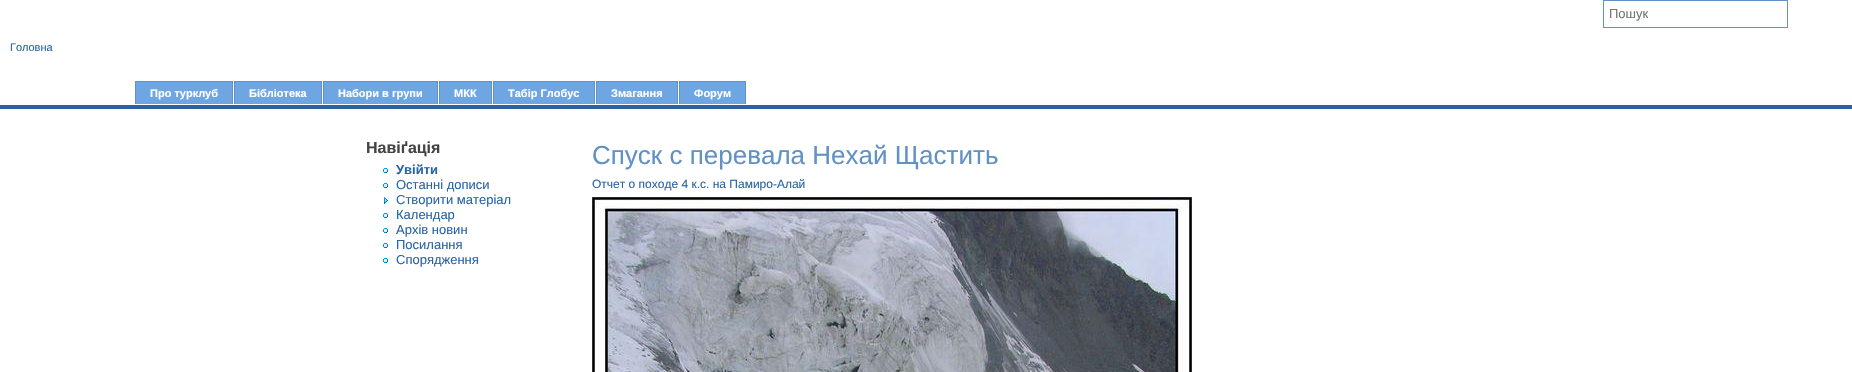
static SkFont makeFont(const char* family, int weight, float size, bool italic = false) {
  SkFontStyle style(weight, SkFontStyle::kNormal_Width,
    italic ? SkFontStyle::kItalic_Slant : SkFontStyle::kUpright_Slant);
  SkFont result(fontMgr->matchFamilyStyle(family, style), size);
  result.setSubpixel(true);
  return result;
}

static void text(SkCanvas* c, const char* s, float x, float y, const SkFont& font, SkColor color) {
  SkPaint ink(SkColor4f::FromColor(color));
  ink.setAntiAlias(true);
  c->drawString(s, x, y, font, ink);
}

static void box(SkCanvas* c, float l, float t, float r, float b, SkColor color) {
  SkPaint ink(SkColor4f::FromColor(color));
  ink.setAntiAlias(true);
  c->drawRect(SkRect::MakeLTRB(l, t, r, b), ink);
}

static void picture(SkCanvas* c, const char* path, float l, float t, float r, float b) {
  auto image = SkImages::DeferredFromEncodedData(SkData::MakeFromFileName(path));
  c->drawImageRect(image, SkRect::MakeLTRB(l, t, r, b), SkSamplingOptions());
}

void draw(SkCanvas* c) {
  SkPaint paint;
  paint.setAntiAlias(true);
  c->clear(0xffffffff);
  paint.setStyle(SkPaint::kStroke_Style);
  paint.setStrokeWidth(1);
  paint.setColor(0xff6191c5);
  c->drawRect(SkRect::MakeLTRB(1603.5f, 0.5f, 1787.5f, 27.5f), paint);
  SkFont face1 = makeFont("Liberation Sans", 400, 13);
  text(c, "Пошук", 1609, 18, face1, 0xff757575);
  SkFont face2 = makeFont("Liberation Sans", 400, 11);
  text(c, "Головна", 10, 51, face2, 0xff2763a5);
  box(c, 0, 105, 1852, 109, 0xff2763a5);
  box(c, 136, 82, 232, 104, 0xff6da6e2);
  box(c, 135, 81, 233, 82, 0xff6191c5);
  box(c, 232, 81, 233, 104, 0xff6191c5);
  box(c, 135, 81, 136, 104, 0xff6191c5);
  SkFont face3 = makeFont("Liberation Sans", 700, 11);
  text(c, "Про турклуб", 150, 97, face3, 0xffffffff);
  box(c, 235, 82, 321, 104, 0xff6da6e2);
  box(c, 234, 81, 322, 82, 0xff6191c5);
  box(c, 321, 81, 322, 104, 0xff6191c5);
  box(c, 234, 81, 235, 104, 0xff6191c5);
  text(c, "Бібліотека", 249, 97, face3, 0xffffffff);
  box(c, 324, 82, 437, 104, 0xff6da6e2);
  box(c, 323, 81, 438, 82, 0xff6191c5);
  box(c, 437, 81, 438, 104, 0xff6191c5);
  box(c, 323, 81, 324, 104, 0xff6191c5);
  text(c, "Набори в групи", 338, 97, face3, 0xffffffff);
  box(c, 440, 82, 491, 104, 0xff6da6e2);
  box(c, 439, 81, 492, 82, 0xff6191c5);
  box(c, 491, 81, 492, 104, 0xff6191c5);
  box(c, 439, 81, 440, 104, 0xff6191c5);
  text(c, "МКК", 454, 97, face3, 0xffffffff);
  box(c, 494, 82, 594, 104, 0xff6da6e2);
  box(c, 493, 81, 595, 82, 0xff6191c5);
  box(c, 594, 81, 595, 104, 0xff6191c5);
  box(c, 493, 81, 494, 104, 0xff6191c5);
  text(c, "Табір Глобус", 508, 97, face3, 0xffffffff);
  box(c, 597, 82, 677, 104, 0xff6da6e2);
  box(c, 596, 81, 678, 82, 0xff6191c5);
  box(c, 677, 81, 678, 104, 0xff6191c5);
  box(c, 596, 81, 597, 104, 0xff6191c5);
  text(c, "Змагання", 611, 97, face3, 0xffffffff);
  box(c, 680, 82, 745, 104, 0xff6da6e2);
  box(c, 679, 81, 746, 82, 0xff6191c5);
  box(c, 745, 81, 746, 104, 0xff6191c5);
  box(c, 679, 81, 680, 104, 0xff6191c5);
  text(c, "Форум", 694, 97, face3, 0xffffffff);
  SkFont face4 = makeFont("Liberation Sans", 700, 16);
  text(c, "Навіґація", 366, 153, face4, 0xff444444);
  picture(c, "img_01.png", 383, 168, 388, 173);
  SkFont face5 = makeFont("Liberation Sans", 700, 13);
  text(c, "Увiйти", 396, 174, face5, 0xff2763a5);
  picture(c, "img_01.png", 383, 183, 388, 188);
  text(c, "Останні дописи", 396, 189, face1, 0xff2763a5);
  picture(c, "img_02.png", 384, 197, 388, 204);
  text(c, "Створити матерiал", 396, 204, face1, 0xff2763a5);
  picture(c, "img_01.png", 383, 213, 388, 218);
  text(c, "Календар", 396, 219, face1, 0xff2763a5);
  picture(c, "img_01.png", 383, 228, 388, 233);
  text(c, "Архів новин", 396, 234, face1, 0xff2763a5);
  picture(c, "img_01.png", 383, 243, 388, 248);
  text(c, "Посилання", 396, 249, face1, 0xff2763a5);
  picture(c, "img_01.png", 383, 258, 388, 263);
  text(c, "Спорядження", 396, 264, face1, 0xff2763a5);
  SkFont face6 = makeFont("Liberation Sans", 400, 26);
  text(c, "Спуск с перевала Нехай Щастить", 592, 164, face6, 0xff6191c5);
  SkFont face7 = makeFont("Liberation Sans", 400, 12);
  text(c, "Отчет о походе 4 к.с. на Памиро-Алай", 592, 188, face7, 0xff2763a5);
  picture(c, "img_03.png", 592, 197, 1192, 372);
}
